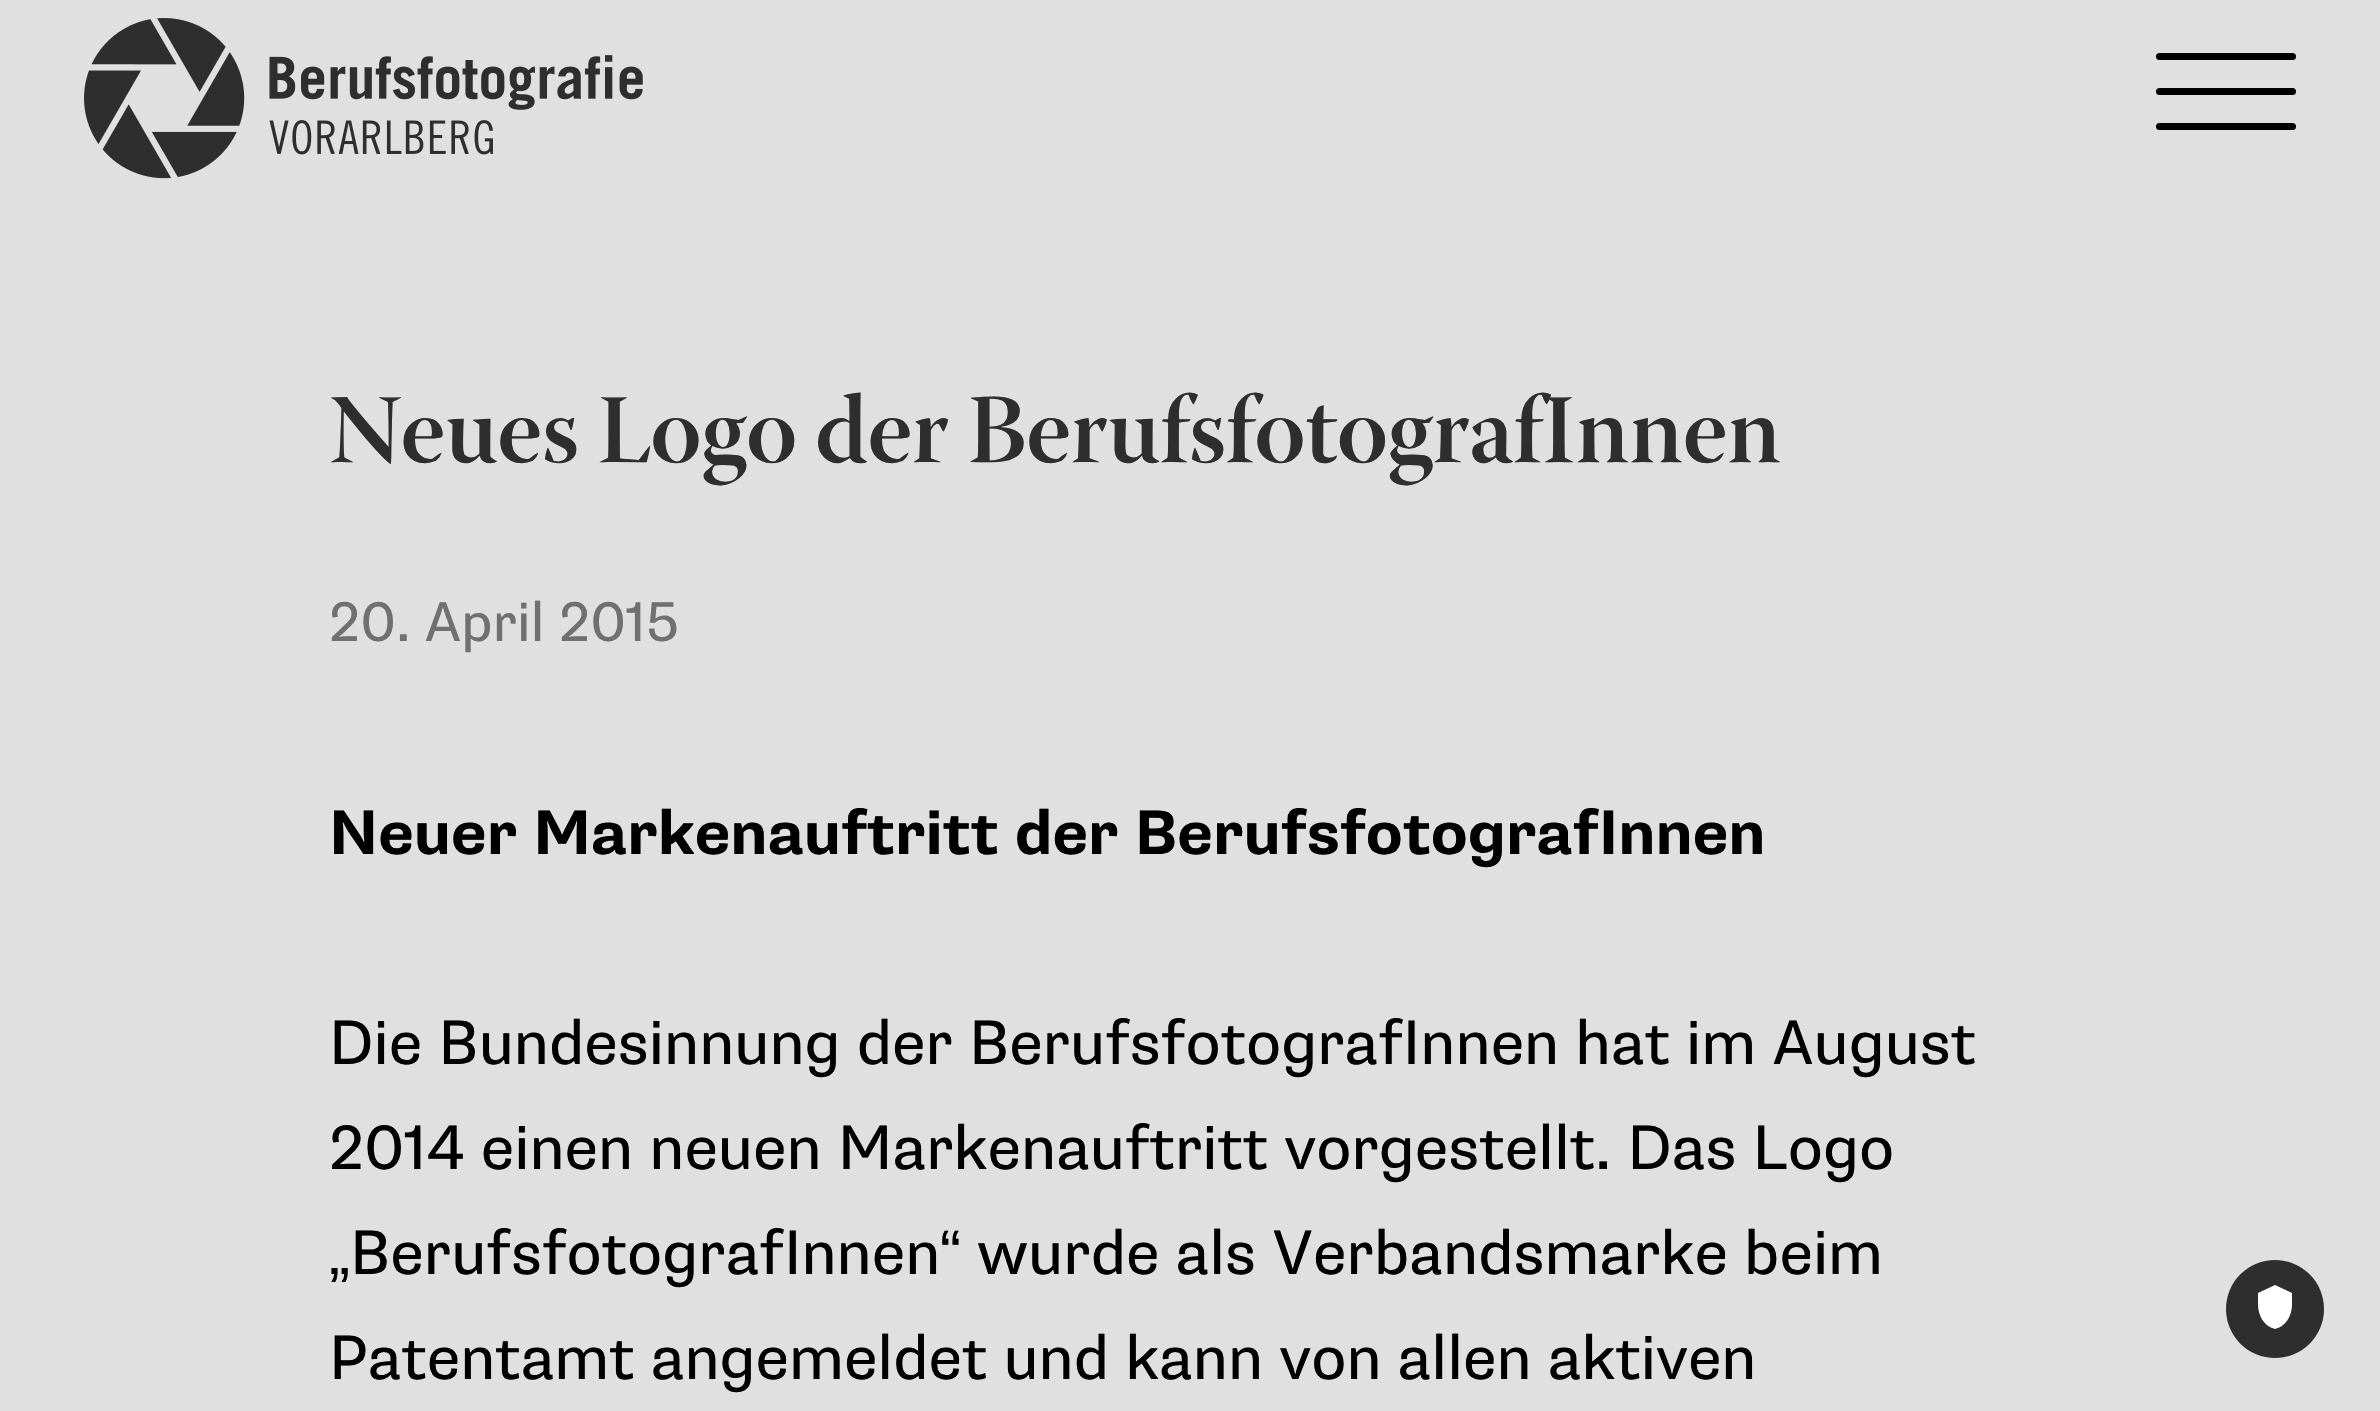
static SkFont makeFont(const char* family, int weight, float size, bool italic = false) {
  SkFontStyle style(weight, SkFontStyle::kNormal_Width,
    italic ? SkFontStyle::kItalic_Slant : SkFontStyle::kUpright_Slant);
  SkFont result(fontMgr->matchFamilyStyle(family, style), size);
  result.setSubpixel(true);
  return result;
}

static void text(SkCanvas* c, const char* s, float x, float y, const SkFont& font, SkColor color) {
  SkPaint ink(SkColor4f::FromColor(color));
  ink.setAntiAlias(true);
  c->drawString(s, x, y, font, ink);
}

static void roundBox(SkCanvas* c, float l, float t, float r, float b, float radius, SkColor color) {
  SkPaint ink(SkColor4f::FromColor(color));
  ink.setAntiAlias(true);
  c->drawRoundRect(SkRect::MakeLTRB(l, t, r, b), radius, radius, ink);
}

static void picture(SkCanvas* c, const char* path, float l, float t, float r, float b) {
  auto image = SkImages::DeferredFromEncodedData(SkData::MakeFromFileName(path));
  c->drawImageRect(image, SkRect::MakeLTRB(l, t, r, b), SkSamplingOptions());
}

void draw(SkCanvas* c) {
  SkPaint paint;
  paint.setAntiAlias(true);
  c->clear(0xffe0e0e0);
  picture(c, "img_01.png", 84, 18, 643, 179);
  roundBox(c, 2156, 88, 2296, 95, 3.5f, 0xff000000);
  roundBox(c, 2156, 53, 2296, 60, 3.5f, 0xff000000);
  roundBox(c, 2156, 123, 2296, 130, 3.5f, 0xff000000);
  SkFont face1 = makeFont("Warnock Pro", 600, 98);
  text(c, "Neues Logo der BerufsfotografInnen", 329, 462, face1, 0xff2e2e2e);
  SkFont face2 = makeFont("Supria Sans", 400, 56);
  text(c, "20. April 2015", 329, 641, face2, 0xff707070);
  SkFont face3 = makeFont("Supria Sans", 700, 63);
  text(c, "Neuer Markenauftritt der BerufsfotografInnen", 329, 854, face3, 0xff000000);
  SkFont face4 = makeFont("Supria Sans", 400, 63);
  text(c, "Die Bundesinnung der BerufsfotografInnen hat im August", 329, 1064, face4, 0xff000000);
  text(c, "2014 einen neuen Markenauftritt vorgestellt. Das Logo", 329, 1169, face4, 0xff000000);
  text(c, "BerufsfotografInnen", 350, 1274, face4, 0xff000000);
  SkFont face5 = makeFont("Liberation Sans", 400, 63);
  text(c, "“", 940, 1274, face5, 0xff000000);
  text(c, "wurde als Verbandsmarke beim", 977, 1274, face4, 0xff000000);
  text(c, "„", 329, 1274, face5, 0xff000000);
  text(c, "Patentamt angemeldet und kann von allen aktiven", 329, 1379, face4, 0xff000000);
  paint.setColor(0xff2e2e2e);
  c->drawCircle(2275, 1309, 49, paint);
  paint.setColor(0xffffffff);
  c->drawPath(SkPathBuilder(SkPathFillType::kEvenOdd).moveTo(2275, 1285).lineTo(2258, 1293).lineTo(2258, 1305).cubicTo(2258, 1316, 2265, 1327, 2275, 1329).cubicTo(2285, 1327, 2292, 1316, 2292, 1305).lineTo(2292, 1293).close().detach(), paint);
}
